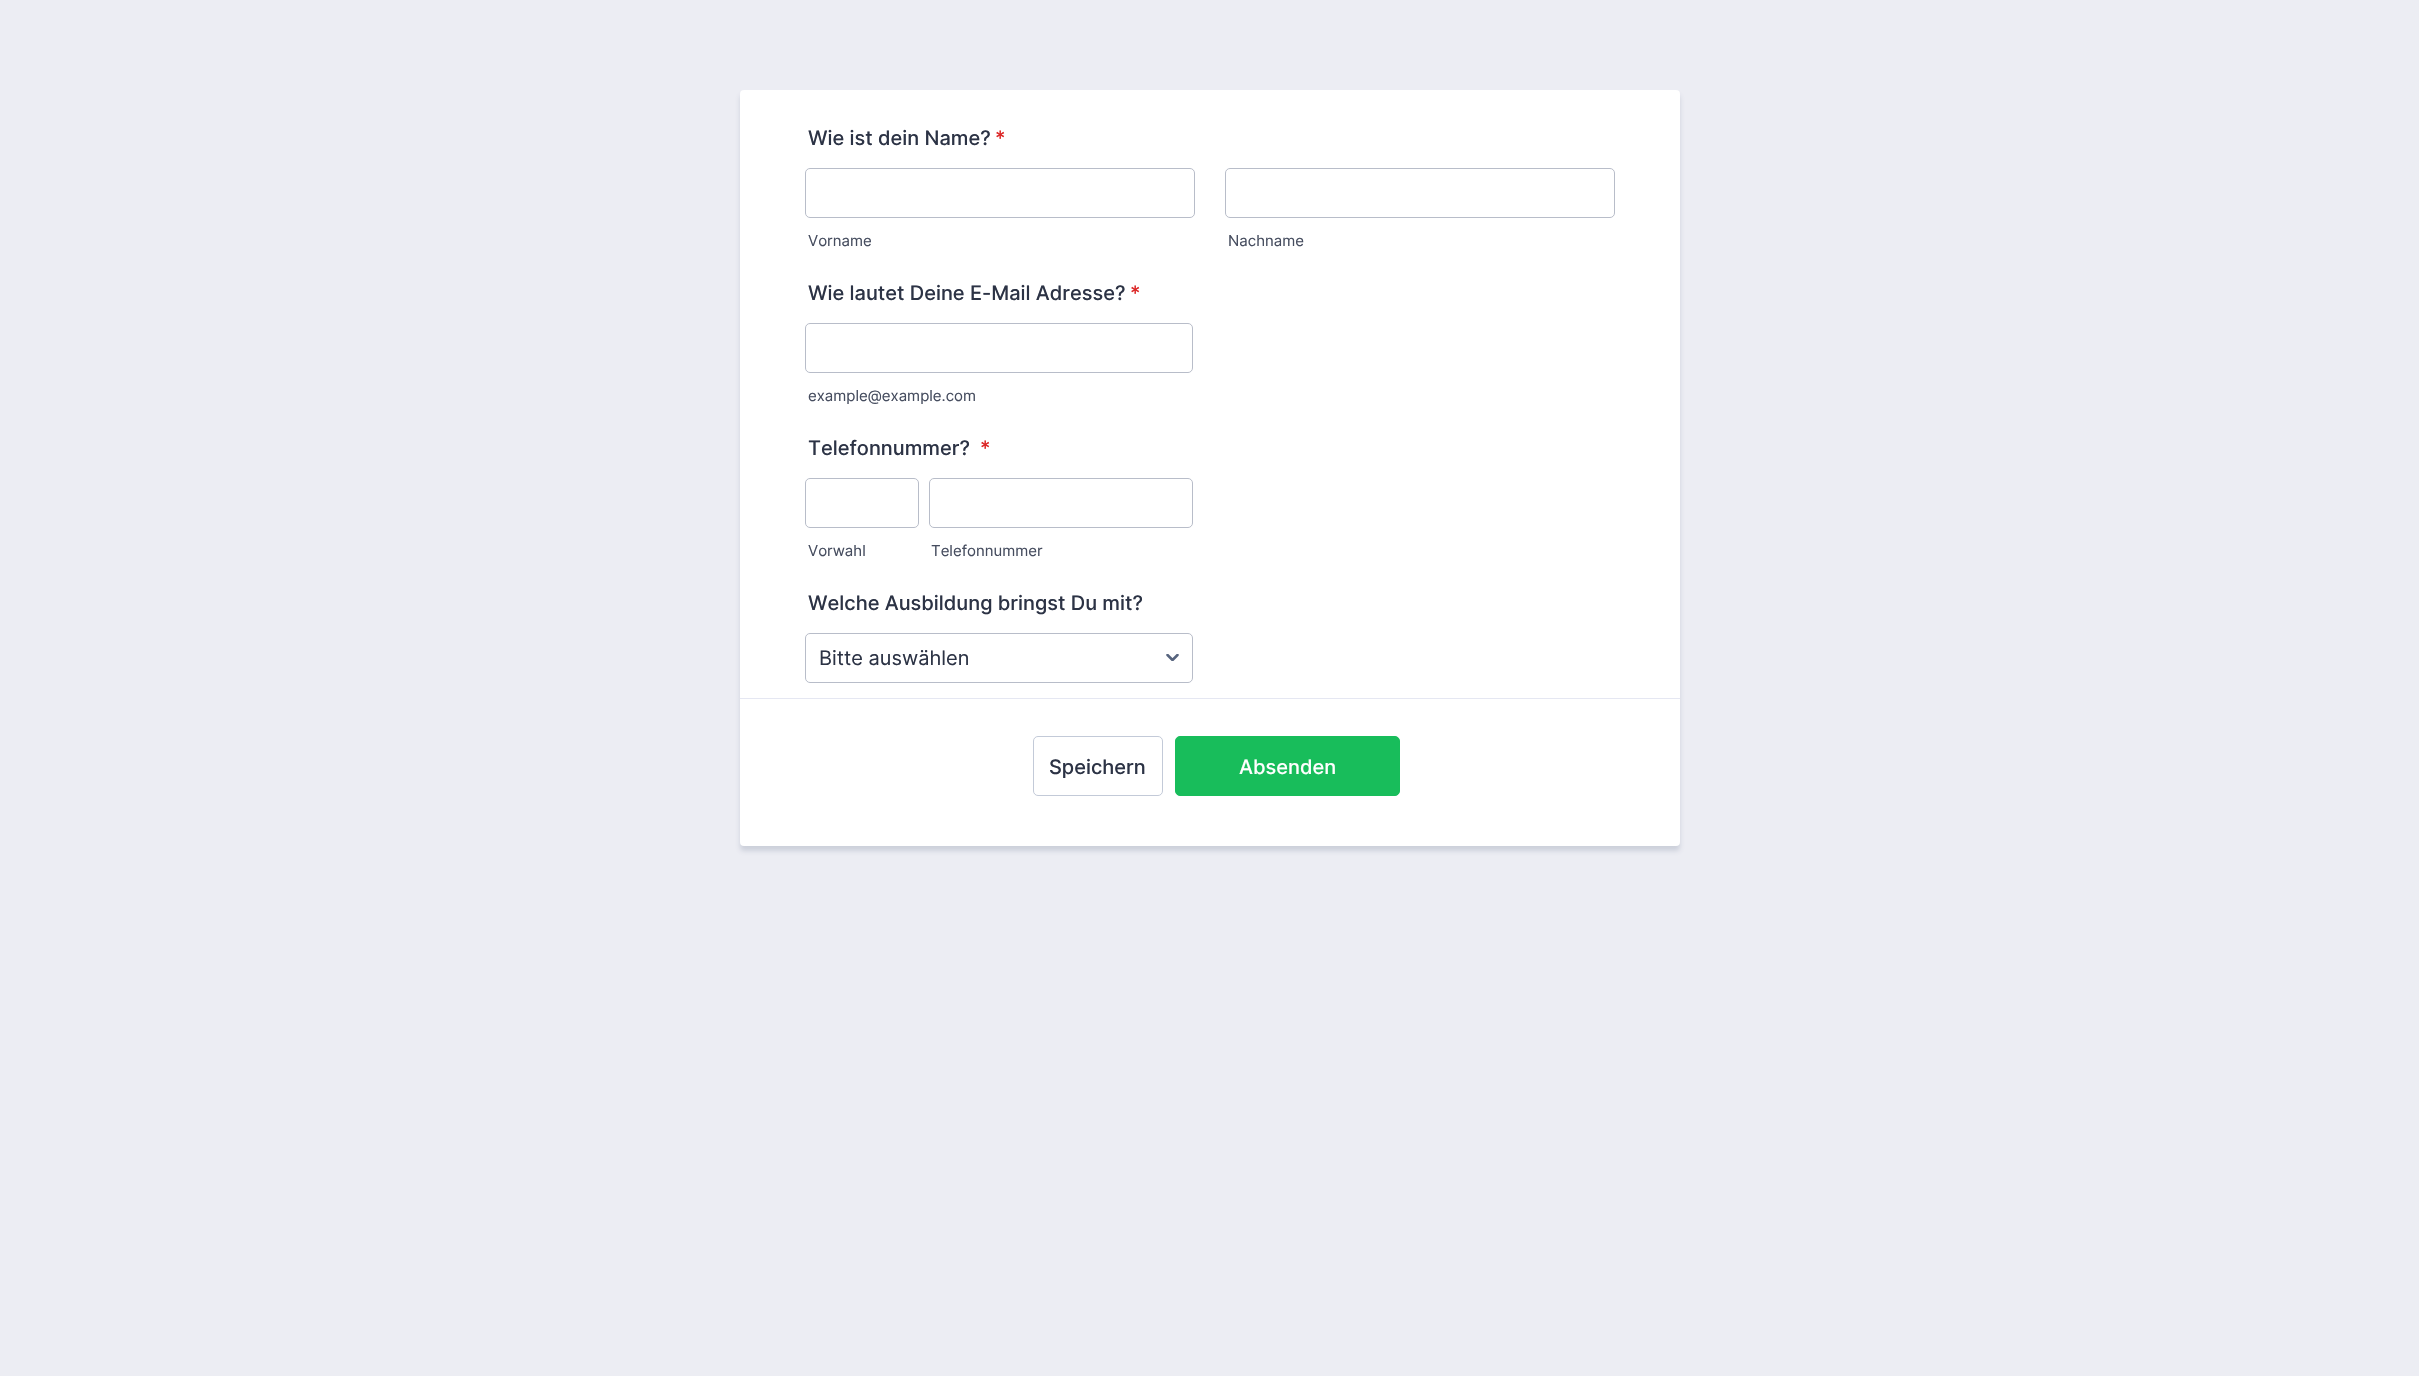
static SkFont makeFont(const char* family, int weight, float size, bool italic = false) {
  SkFontStyle style(weight, SkFontStyle::kNormal_Width,
    italic ? SkFontStyle::kItalic_Slant : SkFontStyle::kUpright_Slant);
  SkFont result(fontMgr->matchFamilyStyle(family, style), size);
  result.setSubpixel(true);
  return result;
}

static void text(SkCanvas* c, const char* s, float x, float y, const SkFont& font, SkColor color) {
  SkPaint ink(SkColor4f::FromColor(color));
  ink.setAntiAlias(true);
  c->drawString(s, x, y, font, ink);
}

static void box(SkCanvas* c, float l, float t, float r, float b, SkColor color) {
  SkPaint ink(SkColor4f::FromColor(color));
  ink.setAntiAlias(true);
  c->drawRect(SkRect::MakeLTRB(l, t, r, b), ink);
}

static void roundBox(SkCanvas* c, float l, float t, float r, float b, float radius, SkColor color) {
  SkPaint ink(SkColor4f::FromColor(color));
  ink.setAntiAlias(true);
  c->drawRoundRect(SkRect::MakeLTRB(l, t, r, b), radius, radius, ink);
}

void draw(SkCanvas* c) {
  SkPaint paint;
  paint.setAntiAlias(true);
  c->clear(0xffecedf3);
  paint.setColor(0x3657647e);
  paint.setMaskFilter(SkMaskFilter::MakeBlur(kNormal_SkBlurStyle, 2.5f));
  c->drawRoundRect(SkRect::MakeLTRB(740, 95, 1680, 851), 4, 4, paint);
  paint.setMaskFilter(nullptr);
  roundBox(c, 740, 90, 1680, 846, 4, 0xffffffff);
  SkFont face1 = makeFont("Inter", 500, 20);
  text(c, "Wie ist dein Name?", 808, 145, face1, 0xff2c3345);
  text(c, "*", 995, 145, face1, 0xffdc2626);
  paint.setStyle(SkPaint::kStroke_Style);
  paint.setStrokeWidth(1);
  paint.setColor(0xffb8bdc9);
  c->drawRoundRect(SkRect::MakeLTRB(805.5f, 168.5f, 1194.5f, 217.5f), 4.5f, 4.5f, paint);
  SkFont face2 = makeFont("Inter", 400, 15);
  text(c, "Vorname", 808, 246, face2, 0xff464d5f);
  c->drawRoundRect(SkRect::MakeLTRB(1225.5f, 168.5f, 1614.5f, 217.5f), 4.5f, 4.5f, paint);
  text(c, "Nachname", 1228, 246, face2, 0xff464d5f);
  text(c, "Wie lautet Deine E-Mail Adresse?", 808, 300, face1, 0xff2c3345);
  text(c, "*", 1130, 300, face1, 0xffdc2626);
  c->drawRoundRect(SkRect::MakeLTRB(805.5f, 323.5f, 1192.5f, 372.5f), 4.5f, 4.5f, paint);
  text(c, "example@example.com", 808, 401, face2, 0xff464d5f);
  text(c, "Telefonnummer?", 808, 455, face1, 0xff2c3345);
  text(c, "*", 980, 455, face1, 0xffdc2626);
  c->drawRoundRect(SkRect::MakeLTRB(805.5f, 478.5f, 918.5f, 527.5f), 4.5f, 4.5f, paint);
  text(c, "Vorwahl", 808, 556, face2, 0xff464d5f);
  c->drawRoundRect(SkRect::MakeLTRB(929.5f, 478.5f, 1192.5f, 527.5f), 4.5f, 4.5f, paint);
  text(c, "Telefonnummer", 931, 556, face2, 0xff464d5f);
  text(c, "Welche Ausbildung bringst Du mit?", 808, 610, face1, 0xff2c3345);
  c->save();
  c->clipRect(SkRect::MakeLTRB(1166, 654, 1179, 661));
  paint.setStrokeWidth(2.5f);
  paint.setStrokeCap(SkPaint::kRound_Cap);
  paint.setStrokeJoin(SkPaint::kRound_Join);
  paint.setColor(0xff57647e);
  c->drawPath(SkPathBuilder().moveTo(1167.5f, 655).lineTo(1172.5f, 660).lineTo(1177.5f, 655).detach(), paint);
  c->restore();
  paint.setStrokeWidth(1);
  paint.setStrokeCap(SkPaint::kButt_Cap);
  paint.setStrokeJoin(SkPaint::kMiter_Join);
  paint.setColor(0xffb8bdc9);
  c->drawRoundRect(SkRect::MakeLTRB(805.5f, 633.5f, 1192.5f, 682.5f), 4.5f, 4.5f, paint);
  SkFont face3 = makeFont("Inter", 400, 20);
  text(c, "Bitte auswählen", 819, 665, face3, 0xff2c3345);
  box(c, 740, 698, 1680, 699, 0xffe5e7f2);
  paint.setColor(0xffc3cad8);
  c->drawRoundRect(SkRect::MakeLTRB(1033.5f, 736.5f, 1162.5f, 795.5f), 4.5f, 4.5f, paint);
  text(c, "Speichern", 1049, 774, face1, 0xff2c3345);
  paint.setStyle(SkPaint::kFill_Style);
  paint.setColor(0xff18bd5b);
  c->drawRoundRect(SkRect::MakeLTRB(1175.5f, 736.5f, 1399.5f, 795.5f), 4.5f, 4.5f, paint);
  paint.setStyle(SkPaint::kStroke_Style);
  c->drawRoundRect(SkRect::MakeLTRB(1175.5f, 736.5f, 1399.5f, 795.5f), 4.5f, 4.5f, paint);
  text(c, "Absenden", 1239, 774, face1, 0xffffffff);
}
